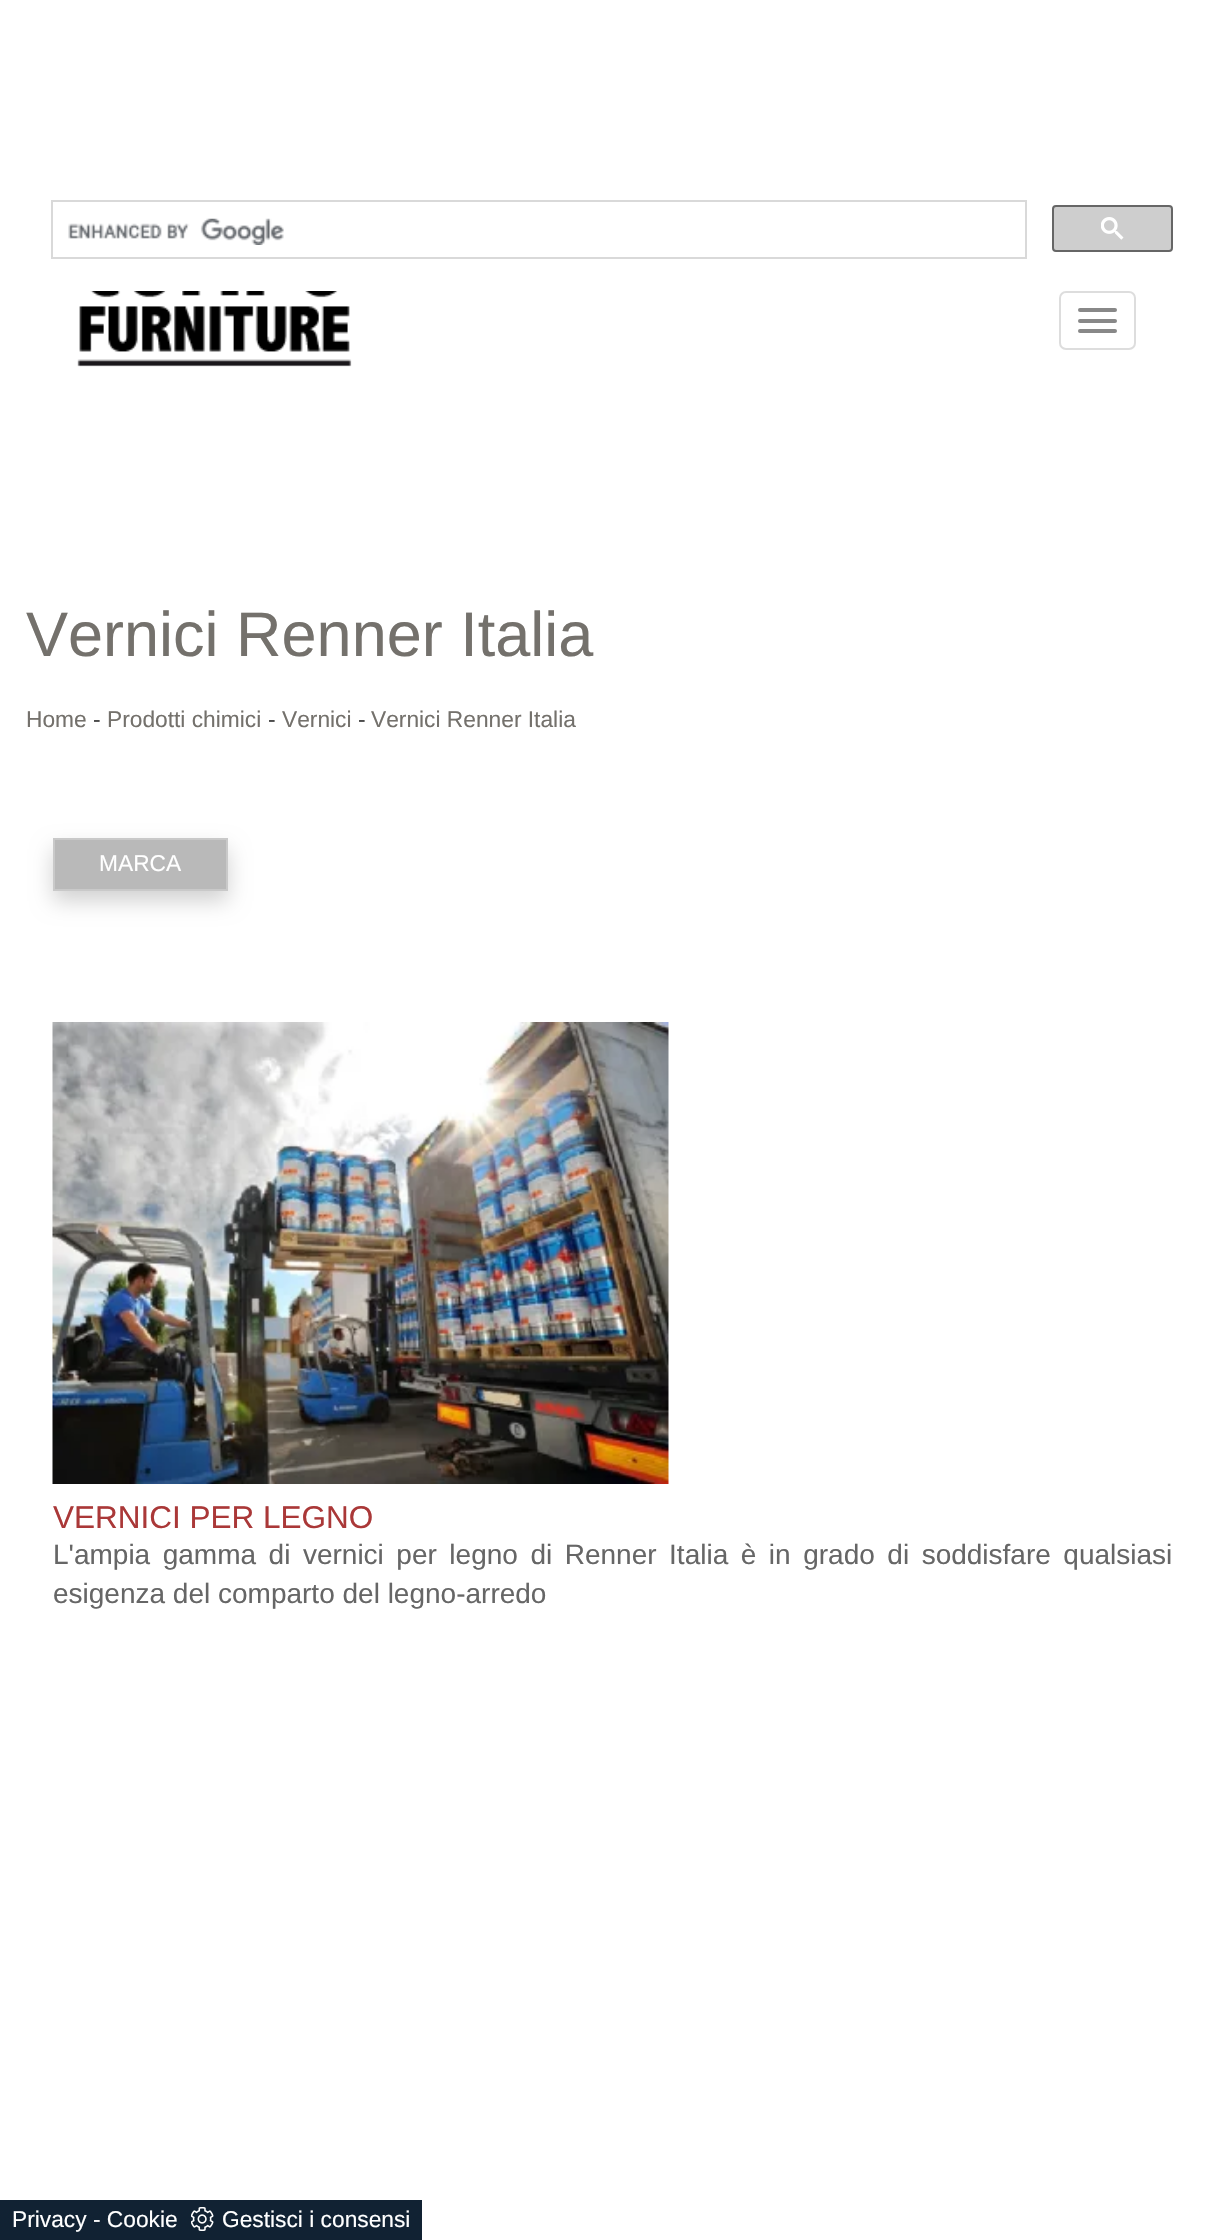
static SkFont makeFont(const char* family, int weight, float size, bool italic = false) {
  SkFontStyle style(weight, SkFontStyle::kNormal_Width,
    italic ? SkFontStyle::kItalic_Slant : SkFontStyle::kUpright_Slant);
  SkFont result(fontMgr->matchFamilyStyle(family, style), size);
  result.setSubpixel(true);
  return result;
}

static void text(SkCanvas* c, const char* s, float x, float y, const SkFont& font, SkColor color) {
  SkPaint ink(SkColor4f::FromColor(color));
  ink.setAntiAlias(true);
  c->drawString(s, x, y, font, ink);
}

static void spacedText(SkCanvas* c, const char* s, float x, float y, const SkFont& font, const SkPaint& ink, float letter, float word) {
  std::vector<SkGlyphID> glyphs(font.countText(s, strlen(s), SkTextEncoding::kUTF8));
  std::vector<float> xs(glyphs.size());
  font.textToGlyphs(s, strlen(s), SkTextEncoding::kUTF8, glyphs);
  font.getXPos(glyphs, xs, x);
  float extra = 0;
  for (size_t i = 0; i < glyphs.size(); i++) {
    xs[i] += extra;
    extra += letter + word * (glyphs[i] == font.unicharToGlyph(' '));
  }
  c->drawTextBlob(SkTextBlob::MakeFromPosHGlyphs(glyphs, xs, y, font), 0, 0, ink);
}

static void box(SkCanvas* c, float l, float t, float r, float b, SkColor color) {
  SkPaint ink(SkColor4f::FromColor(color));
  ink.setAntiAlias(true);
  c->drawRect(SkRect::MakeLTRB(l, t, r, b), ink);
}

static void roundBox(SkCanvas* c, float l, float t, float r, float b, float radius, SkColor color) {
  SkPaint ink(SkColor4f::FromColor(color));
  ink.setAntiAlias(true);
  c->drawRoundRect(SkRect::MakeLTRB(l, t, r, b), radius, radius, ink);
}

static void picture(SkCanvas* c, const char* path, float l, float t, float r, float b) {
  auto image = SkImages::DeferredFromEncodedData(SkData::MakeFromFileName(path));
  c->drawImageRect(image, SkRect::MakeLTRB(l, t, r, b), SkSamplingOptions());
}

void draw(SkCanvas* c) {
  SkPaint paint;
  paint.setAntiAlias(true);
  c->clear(0xffffffff);
  paint.setStyle(SkPaint::kStroke_Style);
  paint.setStrokeWidth(2);
  paint.setColor(0xffd9d9d9);
  c->drawRect(SkRect::MakeLTRB(52, 201, 1026, 258), paint);
  picture(c, "img_01.png", 68, 218, 284, 245);
  paint.setStyle(SkPaint::kFill_Style);
  paint.setColor(0xffcecece);
  c->drawRoundRect(SkRect::MakeLTRB(1053, 206, 1172, 251), 3, 3, paint);
  paint.setStyle(SkPaint::kStroke_Style);
  paint.setColor(0xff666666);
  c->drawRoundRect(SkRect::MakeLTRB(1053, 206, 1172, 251), 3, 3, paint);
  picture(c, "img_02.png", 1101, 217, 1124, 240);
  picture(c, "img_03.png", 77, 291, 352, 367);
  paint.setColor(0xffdddddd);
  c->drawRoundRect(SkRect::MakeLTRB(1060, 292, 1135, 349), 6, 6, paint);
  roundBox(c, 1078, 308, 1117, 312, 2, 0xff888888);
  roundBox(c, 1078, 319, 1117, 323, 2, 0xff888888);
  roundBox(c, 1078, 329, 1117, 333, 2, 0xff888888);
  SkFont face1 = makeFont("Liberation Sans", 400, 63);
  text(c, "Vernici Renner Italia", 26, 656, face1, 0xff74716c);
  SkFont face2 = makeFont("Liberation Sans", 400, 22.75f);
  text(c, "Home", 26, 727, face2, 0xff74716c);
  text(c, "-", 93, 727, face2, 0xff444444);
  text(c, "Prodotti chimici", 107, 727, face2, 0xff74716c);
  text(c, "-", 268, 727, face2, 0xff444444);
  text(c, "Vernici", 282, 727, face2, 0xff74716c);
  text(c, "-", 358, 727, face2, 0xff444444);
  text(c, "Vernici Renner Italia", 371, 727, face2, 0xff74716c);
  paint.setStyle(SkPaint::kFill_Style);
  paint.setColor(0x2e000000);
  paint.setMaskFilter(SkMaskFilter::MakeBlur(kNormal_SkBlurStyle, 10.5f));
  c->drawRect(SkRect::MakeLTRB(53, 849, 228, 901), paint);
  paint.setMaskFilter(nullptr);
  paint.setColor(0xffb9b9b9);
  c->drawRect(SkRect::MakeLTRB(54, 839, 227, 890), paint);
  paint.setStyle(SkPaint::kStroke_Style);
  paint.setColor(0xffc9c9c9);
  c->drawRect(SkRect::MakeLTRB(54, 839, 227, 890), paint);
  text(c, "MARCA", 99, 871, face2, 0xffffffff);
  picture(c, "img_04.png", 52, 1022, 669, 1484);
  SkFont face3 = makeFont("Liberation Sans", 400, 31.5f);
  text(c, "VERNICI PER LEGNO", 53, 1528, face3, 0xffaa3838);
  SkFont face4 = makeFont("Liberation Sans", 400, 28);
  paint.setStyle(SkPaint::kFill_Style);
  paint.setColor(0xff666666);
  spacedText(c, "L'ampia gamma di vernici per legno di Renner Italia è in grado di soddisfare qualsiasi", 53, 1564, face4, paint, 0, 4.75f);
  text(c, "esigenza del comparto del legno-arredo", 53, 1603, face4, 0xff666666);
  box(c, 0, 2200, 422, 2240, 0xff112233);
  text(c, "Privacy - Cookie", 12, 2227, face2, 0xffffffff);
  picture(c, "img_05.png", 191, 2207, 214, 2231);
  text(c, "Gestisci i consensi", 222, 2227, face2, 0xffffffff);
}
